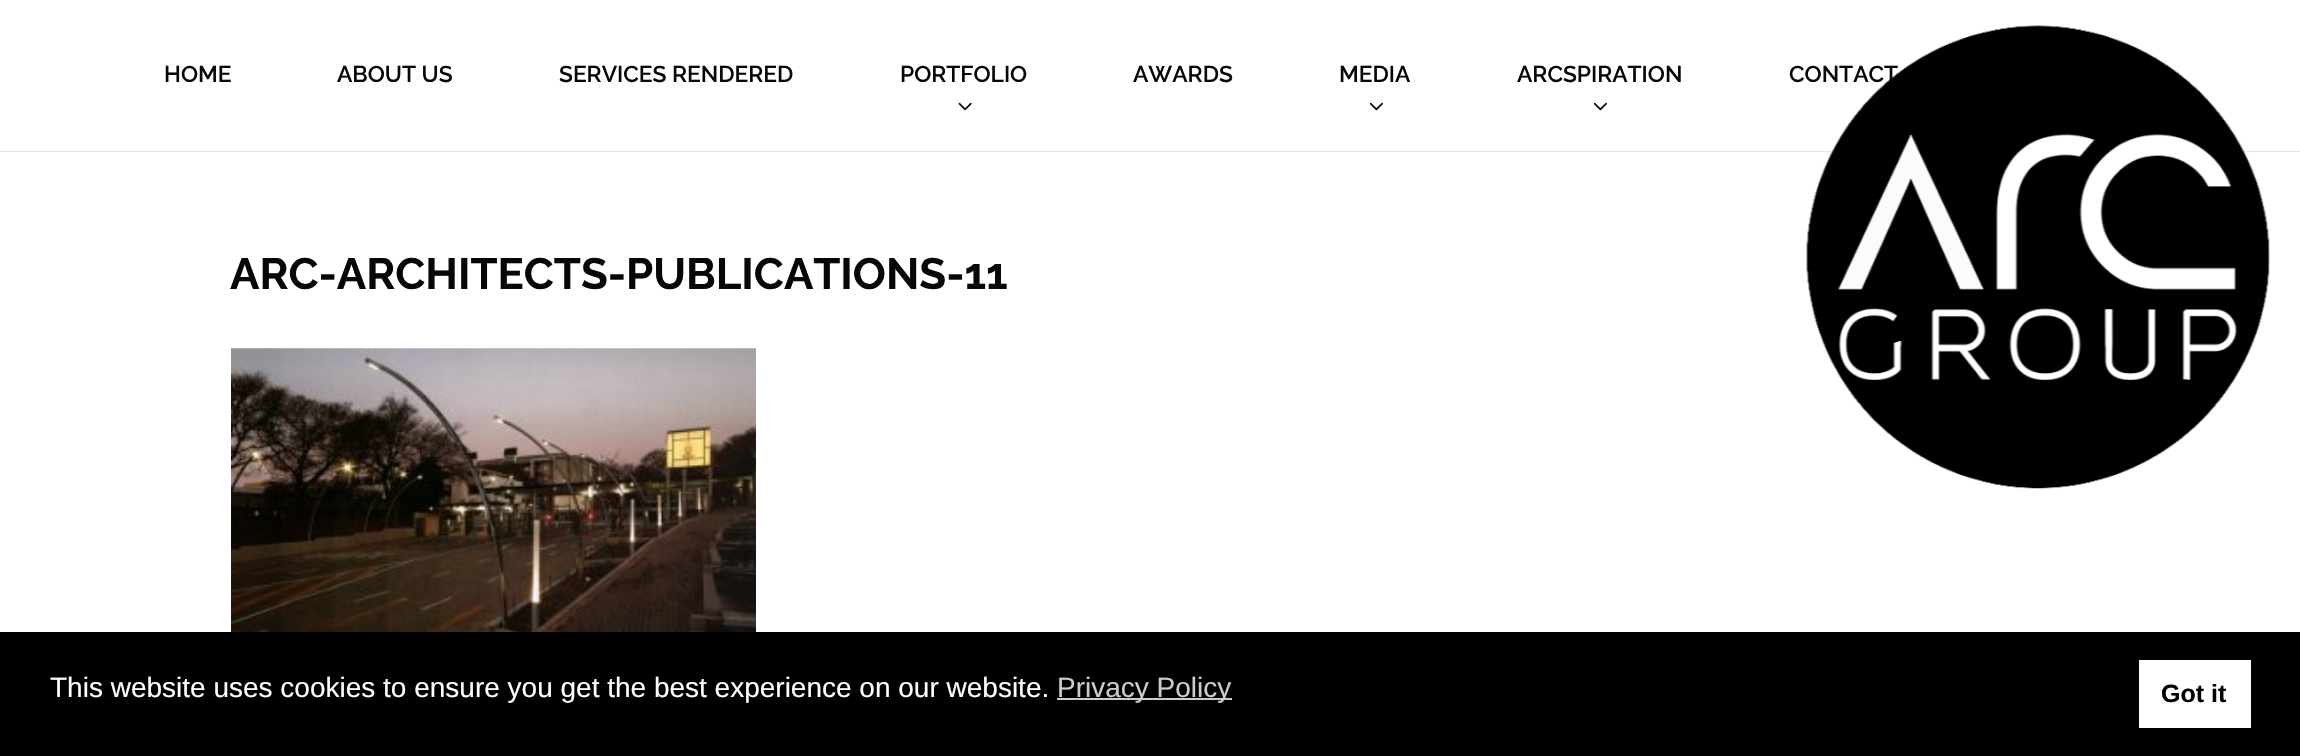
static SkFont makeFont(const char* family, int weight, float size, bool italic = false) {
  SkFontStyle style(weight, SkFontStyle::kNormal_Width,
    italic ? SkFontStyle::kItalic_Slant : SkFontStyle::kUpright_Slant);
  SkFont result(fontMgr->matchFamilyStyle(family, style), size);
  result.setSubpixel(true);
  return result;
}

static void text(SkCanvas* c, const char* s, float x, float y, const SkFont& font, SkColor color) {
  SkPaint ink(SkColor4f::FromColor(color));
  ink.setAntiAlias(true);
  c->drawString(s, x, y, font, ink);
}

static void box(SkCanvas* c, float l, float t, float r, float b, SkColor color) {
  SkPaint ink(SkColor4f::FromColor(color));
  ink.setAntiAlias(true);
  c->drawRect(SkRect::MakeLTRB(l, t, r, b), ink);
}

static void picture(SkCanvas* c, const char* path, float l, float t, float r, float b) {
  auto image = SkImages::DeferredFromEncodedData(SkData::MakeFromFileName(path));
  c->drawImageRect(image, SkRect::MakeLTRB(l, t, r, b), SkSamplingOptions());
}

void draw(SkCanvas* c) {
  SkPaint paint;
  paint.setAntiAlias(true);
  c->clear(0xffffffff);
  box(c, 0, 151, 2300, 152, 0xffe6e6e6);
  SkFont face1 = makeFont("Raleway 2", 100, 22.75f);
  text(c, "HOME", 164, 82, face1, 0xff050708);
  text(c, "ABOUT US", 337, 82, face1, 0xff050708);
  text(c, "SERVICES RENDERED", 559, 82, face1, 0xff050708);
  text(c, "PORTFOLIO", 900, 82, face1, 0xff050708);
  picture(c, "img_01.png", 958, 102, 972, 111);
  text(c, "AWARDS", 1133, 82, face1, 0xff050708);
  text(c, "MEDIA", 1339, 82, face1, 0xff050708);
  picture(c, "img_02.png", 1369, 102, 1383, 111);
  text(c, "ARCSPIRATION", 1517, 82, face1, 0xff050708);
  picture(c, "img_02.png", 1593, 102, 1607, 111);
  picture(c, "img_03.png", 1806, 25, 2270, 489);
  text(c, "CONTACT", 1789, 82, face1, 0xff050708);
  SkFont face2 = makeFont("Raleway", 100, 43.75f);
  text(c, "ARC-ARCHITECTS-PUBLICATIONS-11", 230, 289, face2, 0xff050708);
  picture(c, "img_04.png", 231, 348, 756, 632);
  box(c, 0, 632, 2300, 756, 0xff000000);
  SkFont face3 = makeFont("Liberation Sans", 400, 28);
  text(c, "This website uses cookies to ensure you get the best experience on our website.", 50, 697, face3, 0xffffffff);
  box(c, 1057, 698, 1232, 700, 0xffcccccc);
  text(c, "Privacy Policy", 1057, 697, face3, 0xffcccccc);
  box(c, 2139, 660, 2251, 728, 0xffffffff);
  SkFont face4 = makeFont("Liberation Sans", 700, 25);
  text(c, "Got it", 2161, 702, face4, 0xff000000);
}
